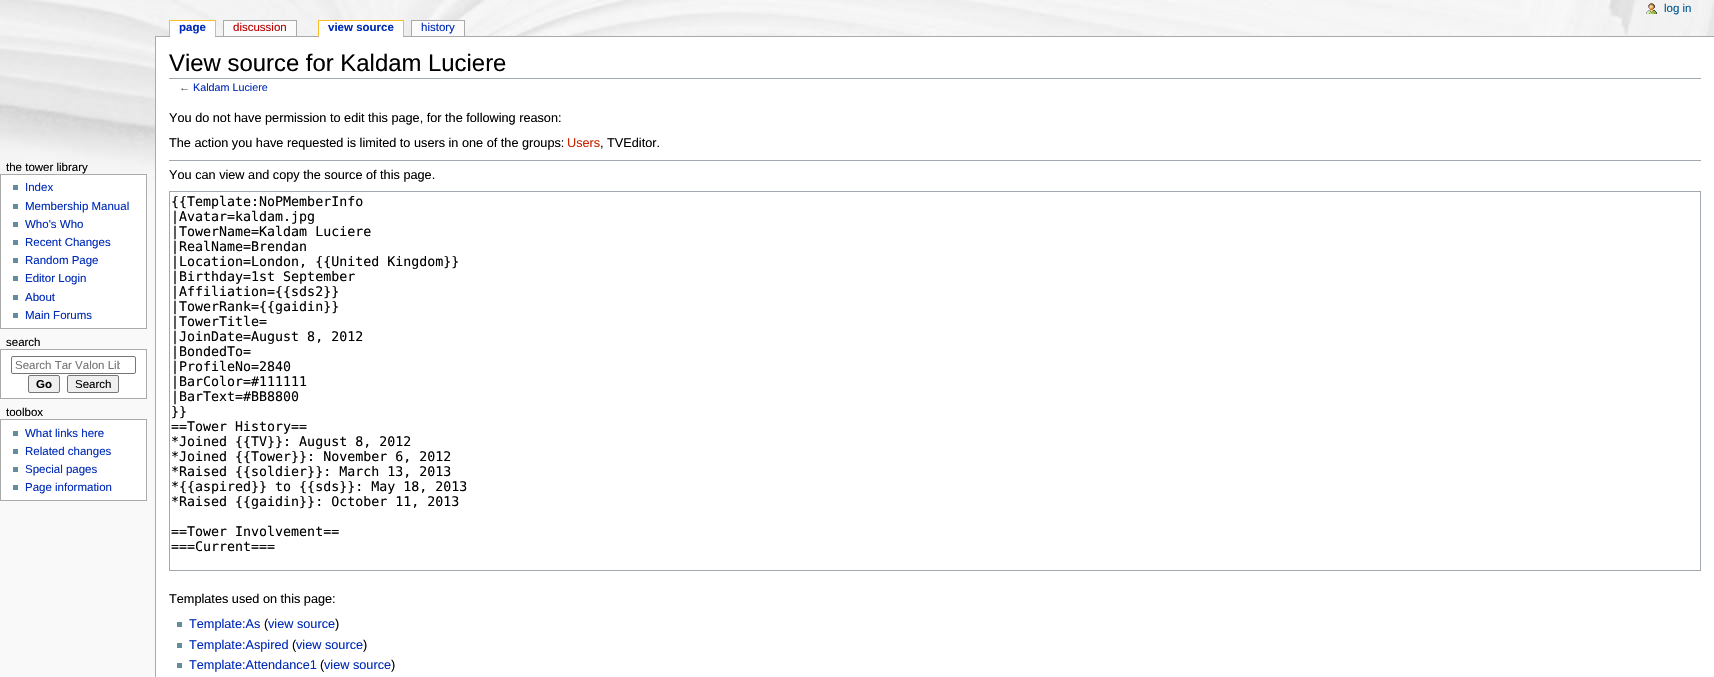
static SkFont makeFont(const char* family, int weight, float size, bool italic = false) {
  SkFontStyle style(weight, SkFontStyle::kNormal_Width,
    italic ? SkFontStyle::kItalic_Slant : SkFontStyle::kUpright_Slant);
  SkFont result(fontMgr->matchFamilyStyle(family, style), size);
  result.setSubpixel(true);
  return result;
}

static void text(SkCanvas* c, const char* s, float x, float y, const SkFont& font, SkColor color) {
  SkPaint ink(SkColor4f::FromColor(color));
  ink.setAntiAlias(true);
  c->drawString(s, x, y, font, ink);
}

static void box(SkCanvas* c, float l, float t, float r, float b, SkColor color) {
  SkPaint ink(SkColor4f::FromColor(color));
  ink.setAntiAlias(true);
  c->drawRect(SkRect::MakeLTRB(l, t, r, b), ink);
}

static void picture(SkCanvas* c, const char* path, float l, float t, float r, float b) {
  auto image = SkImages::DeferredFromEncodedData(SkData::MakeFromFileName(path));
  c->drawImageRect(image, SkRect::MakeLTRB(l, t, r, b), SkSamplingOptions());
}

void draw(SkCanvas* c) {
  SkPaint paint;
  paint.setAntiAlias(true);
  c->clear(0xfff9f9f9);
  picture(c, "img_01.png", 0, 0, 1714, 194);
  picture(c, "img_02.png", 1646, 3, 1657, 14);
  SkFont face1 = makeFont("Liberation Sans", 400, 11.5f);
  text(c, "log in", 1664, 12, face1, 0xff005896);
  box(c, 155, 36, 1714, 37, 0xffaaaaaa);
  box(c, 170, 21, 215, 37, 0xffffffff);
  SkFont face2 = makeFont("Liberation Sans", 700, 11.5f);
  text(c, "page", 179, 31, face2, 0xff002bb8);
  box(c, 169, 20, 216, 21, 0xfffabd23);
  box(c, 215, 20, 216, 36, 0xfffabd23);
  box(c, 169, 20, 170, 36, 0xfffabd23);
  box(c, 224, 21, 296, 36, 0xfffbfbfb);
  text(c, "discussion", 233, 31, face1, 0xffba0000);
  box(c, 223, 20, 297, 21, 0xffaaaaaa);
  box(c, 296, 20, 297, 36, 0xffaaaaaa);
  box(c, 223, 20, 224, 36, 0xffaaaaaa);
  box(c, 319, 21, 403, 37, 0xffffffff);
  text(c, "view source", 328, 31, face2, 0xff002bb8);
  box(c, 318, 20, 404, 21, 0xfffabd23);
  box(c, 403, 20, 404, 36, 0xfffabd23);
  box(c, 318, 20, 319, 36, 0xfffabd23);
  box(c, 412, 21, 464, 36, 0xfffbfbfb);
  text(c, "history", 421, 31, face1, 0xff002bb8);
  box(c, 411, 20, 465, 21, 0xffaaaaaa);
  box(c, 464, 20, 465, 36, 0xffaaaaaa);
  box(c, 411, 20, 412, 36, 0xffaaaaaa);
  text(c, "the tower library", 6, 171, face1, 0xff000000);
  paint.setColor(0xffffffff);
  c->drawRect(SkRect::MakeLTRB(0.5f, 174.5f, 146.5f, 328.5f), paint);
  paint.setStyle(SkPaint::kStroke_Style);
  paint.setStrokeWidth(1);
  paint.setColor(0xffaaaaaa);
  c->drawRect(SkRect::MakeLTRB(0.5f, 174.5f, 146.5f, 328.5f), paint);
  box(c, 13, 185, 18, 190, 0xff638c9c);
  text(c, "Index", 25, 191, face1, 0xff002bb8);
  box(c, 13, 204, 18, 209, 0xff638c9c);
  text(c, "Membership Manual", 25, 210, face1, 0xff002bb8);
  box(c, 13, 222, 18, 227, 0xff638c9c);
  text(c, "Who's Who", 25, 228, face1, 0xff002bb8);
  box(c, 13, 240, 18, 245, 0xff638c9c);
  text(c, "Recent Changes", 25, 246, face1, 0xff002bb8);
  box(c, 13, 258, 18, 263, 0xff638c9c);
  text(c, "Random Page", 25, 264, face1, 0xff002bb8);
  box(c, 13, 276, 18, 281, 0xff638c9c);
  text(c, "Editor Login", 25, 282, face1, 0xff002bb8);
  box(c, 13, 295, 18, 300, 0xff638c9c);
  text(c, "About", 25, 301, face1, 0xff002bb8);
  box(c, 13, 313, 18, 318, 0xff638c9c);
  text(c, "Main Forums", 25, 319, face1, 0xff002bb8);
  text(c, "search", 6, 346, face1, 0xff000000);
  paint.setStyle(SkPaint::kFill_Style);
  paint.setColor(0xffffffff);
  c->drawRect(SkRect::MakeLTRB(0.5f, 349.5f, 146.5f, 398.5f), paint);
  paint.setStyle(SkPaint::kStroke_Style);
  paint.setColor(0xffaaaaaa);
  c->drawRect(SkRect::MakeLTRB(0.5f, 349.5f, 146.5f, 398.5f), paint);
  paint.setColor(0xff767676);
  c->drawRoundRect(SkRect::MakeLTRB(11.5f, 356.5f, 135.5f, 373.5f), 1.5f, 1.5f, paint);
  c->save();
  c->clipRect(SkRect::MakeLTRB(15, 359, 120, 371));
  text(c, "Search Tar Valon Lib", 15, 369, face1, 0xff757575);
  c->restore();
  paint.setStyle(SkPaint::kFill_Style);
  paint.setColor(0xffefefef);
  c->drawRoundRect(SkRect::MakeLTRB(28.5f, 375.5f, 59.5f, 392.5f), 1.5f, 1.5f, paint);
  paint.setStyle(SkPaint::kStroke_Style);
  paint.setColor(0xff767676);
  c->drawRoundRect(SkRect::MakeLTRB(28.5f, 375.5f, 59.5f, 392.5f), 1.5f, 1.5f, paint);
  text(c, "Go", 36, 388, face2, 0xff000000);
  paint.setStyle(SkPaint::kFill_Style);
  paint.setColor(0xffefefef);
  c->drawRoundRect(SkRect::MakeLTRB(67.5f, 375.5f, 118.5f, 392.5f), 1.5f, 1.5f, paint);
  paint.setStyle(SkPaint::kStroke_Style);
  paint.setColor(0xff767676);
  c->drawRoundRect(SkRect::MakeLTRB(67.5f, 375.5f, 118.5f, 392.5f), 1.5f, 1.5f, paint);
  text(c, "Search", 75, 388, face1, 0xff000000);
  text(c, "toolbox", 6, 416, face1, 0xff000000);
  paint.setStyle(SkPaint::kFill_Style);
  paint.setColor(0xffffffff);
  c->drawRect(SkRect::MakeLTRB(0.5f, 419.5f, 146.5f, 500.5f), paint);
  paint.setStyle(SkPaint::kStroke_Style);
  paint.setColor(0xffaaaaaa);
  c->drawRect(SkRect::MakeLTRB(0.5f, 419.5f, 146.5f, 500.5f), paint);
  box(c, 13, 431, 18, 436, 0xff638c9c);
  text(c, "What links here", 25, 437, face1, 0xff002bb8);
  box(c, 13, 449, 18, 454, 0xff638c9c);
  text(c, "Related changes", 25, 455, face1, 0xff002bb8);
  box(c, 13, 467, 18, 472, 0xff638c9c);
  text(c, "Special pages", 25, 473, face1, 0xff002bb8);
  box(c, 13, 485, 18, 490, 0xff638c9c);
  text(c, "Page information", 25, 491, face1, 0xff002bb8);
  box(c, 156, 37, 1714, 677, 0xffffffff);
  box(c, 155, 36, 156, 677, 0xffaaaaaa);
  box(c, 169, 78, 1701, 79, 0xffa2a9b1);
  SkFont face3 = makeFont("Liberation Sans", 400, 23.9f);
  text(c, "View source for Kaldam Luciere", 169, 71, face3, 0xff000000);
  SkFont face4 = makeFont("Liberation Sans", 400, 10.75f);
  text(c, "←", 179, 91, face4, 0xff545454);
  text(c, "Kaldam Luciere", 193, 91, face4, 0xff002bb8);
  SkFont face5 = makeFont("Liberation Sans", 400, 12.7f);
  text(c, "You do not have permission to edit this page, for the following reason:", 169, 122, face5, 0xff000000);
  text(c, "The action you have requested is limited to users in one of the groups:", 169, 147, face5, 0xff000000);
  text(c, "Users", 567, 147, face5, 0xffcc2200);
  text(c, ", TVEditor.", 600, 147, face5, 0xff000000);
  box(c, 169, 160, 1701, 161, 0xffa2a9b1);
  text(c, "You can view and copy the source of this page.", 169, 179, face5, 0xff000000);
  paint.setColor(0xffa2a9b1);
  c->drawRect(SkRect::MakeLTRB(169.5f, 191.5f, 1700.5f, 570.5f), paint);
  SkFont face6 = makeFont("DejaVu Sans Mono", 400, 13.3f);
  text(c, "{{Template:NoPMemberInfo", 171, 206, face6, 0xff000000);
  text(c, "|Avatar=kaldam.jpg", 171, 221, face6, 0xff000000);
  text(c, "|TowerName=Kaldam Luciere", 171, 236, face6, 0xff000000);
  text(c, "|RealName=Brendan", 171, 251, face6, 0xff000000);
  text(c, "|Location=London, {{United Kingdom}}", 171, 266, face6, 0xff000000);
  text(c, "|Birthday=1st September", 171, 281, face6, 0xff000000);
  text(c, "|Affiliation={{sds2}}", 171, 296, face6, 0xff000000);
  text(c, "|TowerRank={{gaidin}}", 171, 311, face6, 0xff000000);
  text(c, "|TowerTitle=", 171, 326, face6, 0xff000000);
  text(c, "|JoinDate=August 8, 2012", 171, 341, face6, 0xff000000);
  text(c, "|BondedTo=", 171, 356, face6, 0xff000000);
  text(c, "|ProfileNo=2840", 171, 371, face6, 0xff000000);
  text(c, "|BarColor=#111111", 171, 386, face6, 0xff000000);
  text(c, "|BarText=#BB8800", 171, 401, face6, 0xff000000);
  text(c, "}}", 171, 416, face6, 0xff000000);
  text(c, "==Tower History==", 171, 431, face6, 0xff000000);
  text(c, "*Joined {{TV}}: August 8, 2012", 171, 446, face6, 0xff000000);
  text(c, "*Joined {{Tower}}: November 6, 2012", 171, 461, face6, 0xff000000);
  text(c, "*Raised {{soldier}}: March 13, 2013", 171, 476, face6, 0xff000000);
  text(c, "*{{aspired}} to {{sds}}: May 18, 2013", 171, 491, face6, 0xff000000);
  text(c, "*Raised {{gaidin}}: October 11, 2013", 171, 506, face6, 0xff000000);
  text(c, "==Tower Involvement==", 171, 536, face6, 0xff000000);
  text(c, "===Current===", 171, 551, face6, 0xff000000);
  text(c, "Templates used on this page:", 169, 603, face5, 0xff000000);
  box(c, 177, 622, 182, 627, 0xff638c9c);
  text(c, "Template:As", 189, 628, face5, 0xff002bb8);
  text(c, "(", 264, 628, face5, 0xff000000);
  text(c, "view source", 268, 628, face5, 0xff002bb8);
  text(c, ")", 335, 628, face5, 0xff000000);
  box(c, 177, 643, 182, 648, 0xff638c9c);
  text(c, "Template:Aspired", 189, 649, face5, 0xff002bb8);
  text(c, "(", 292, 649, face5, 0xff000000);
  text(c, "view source", 296, 649, face5, 0xff002bb8);
  text(c, ")", 363, 649, face5, 0xff000000);
  box(c, 177, 663, 182, 668, 0xff638c9c);
  text(c, "Template:Attendance1", 189, 669, face5, 0xff002bb8);
  text(c, "(", 320, 669, face5, 0xff000000);
  text(c, "view source", 324, 669, face5, 0xff002bb8);
  text(c, ")", 391, 669, face5, 0xff000000);
}
